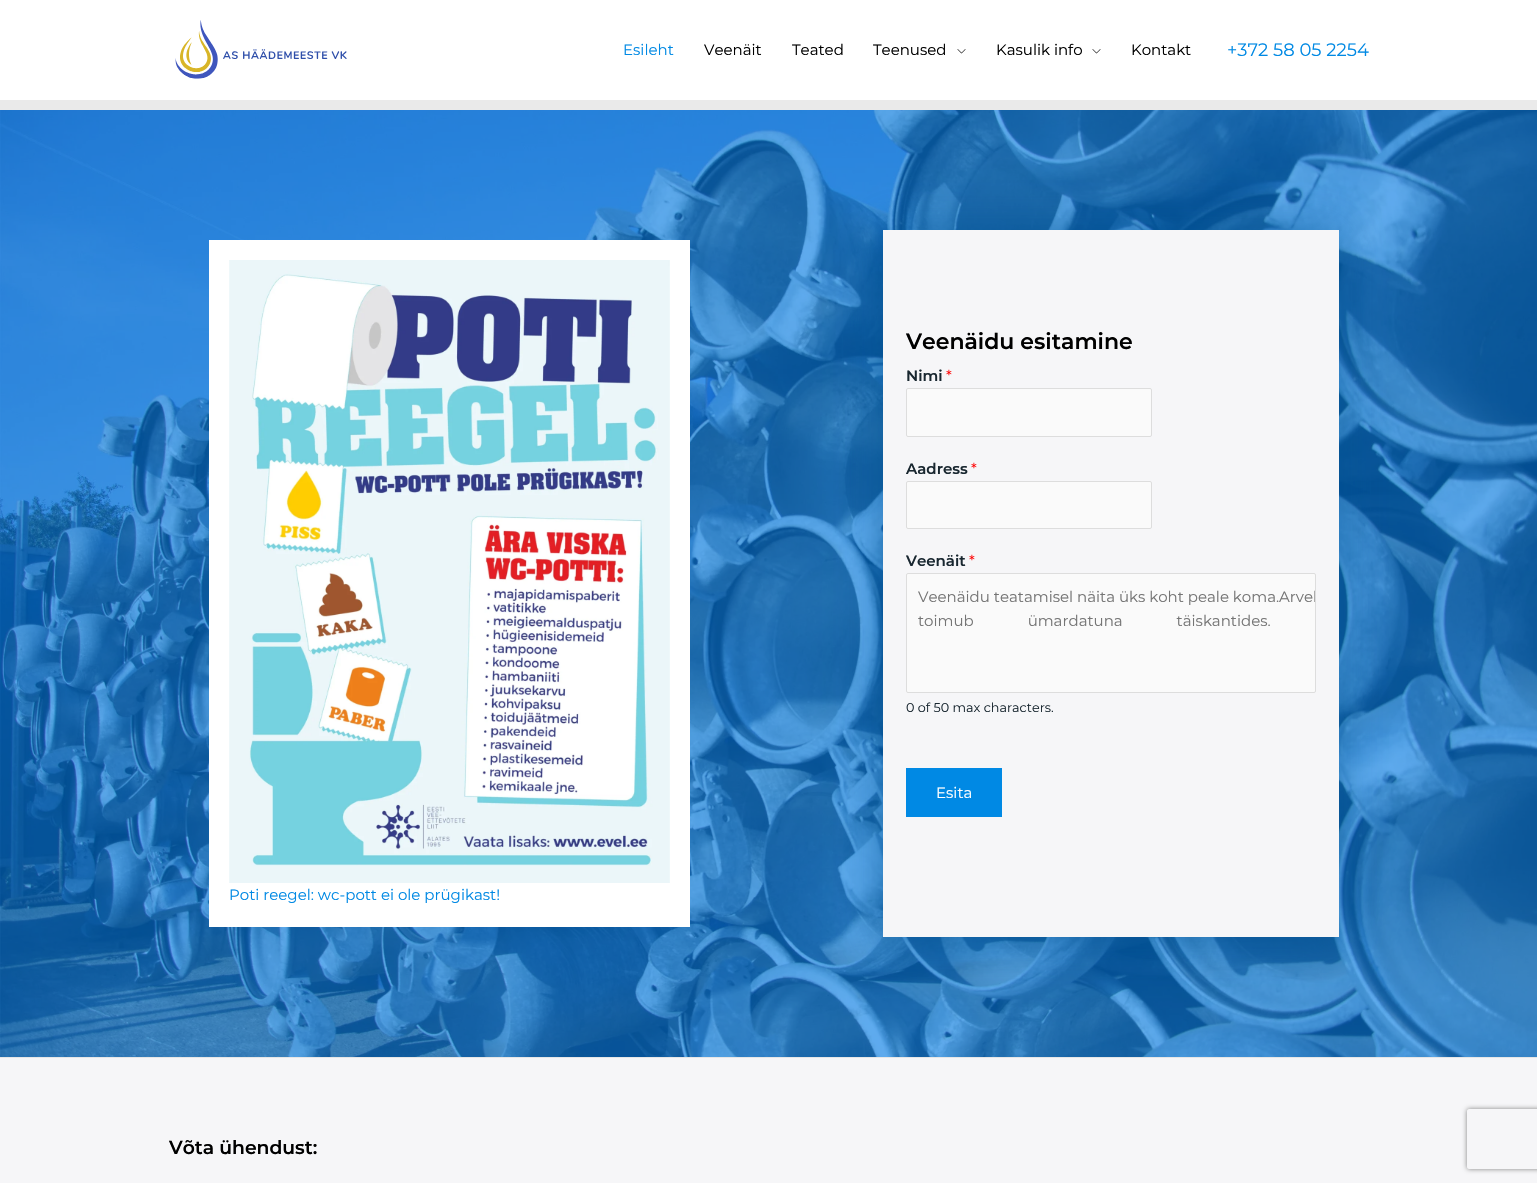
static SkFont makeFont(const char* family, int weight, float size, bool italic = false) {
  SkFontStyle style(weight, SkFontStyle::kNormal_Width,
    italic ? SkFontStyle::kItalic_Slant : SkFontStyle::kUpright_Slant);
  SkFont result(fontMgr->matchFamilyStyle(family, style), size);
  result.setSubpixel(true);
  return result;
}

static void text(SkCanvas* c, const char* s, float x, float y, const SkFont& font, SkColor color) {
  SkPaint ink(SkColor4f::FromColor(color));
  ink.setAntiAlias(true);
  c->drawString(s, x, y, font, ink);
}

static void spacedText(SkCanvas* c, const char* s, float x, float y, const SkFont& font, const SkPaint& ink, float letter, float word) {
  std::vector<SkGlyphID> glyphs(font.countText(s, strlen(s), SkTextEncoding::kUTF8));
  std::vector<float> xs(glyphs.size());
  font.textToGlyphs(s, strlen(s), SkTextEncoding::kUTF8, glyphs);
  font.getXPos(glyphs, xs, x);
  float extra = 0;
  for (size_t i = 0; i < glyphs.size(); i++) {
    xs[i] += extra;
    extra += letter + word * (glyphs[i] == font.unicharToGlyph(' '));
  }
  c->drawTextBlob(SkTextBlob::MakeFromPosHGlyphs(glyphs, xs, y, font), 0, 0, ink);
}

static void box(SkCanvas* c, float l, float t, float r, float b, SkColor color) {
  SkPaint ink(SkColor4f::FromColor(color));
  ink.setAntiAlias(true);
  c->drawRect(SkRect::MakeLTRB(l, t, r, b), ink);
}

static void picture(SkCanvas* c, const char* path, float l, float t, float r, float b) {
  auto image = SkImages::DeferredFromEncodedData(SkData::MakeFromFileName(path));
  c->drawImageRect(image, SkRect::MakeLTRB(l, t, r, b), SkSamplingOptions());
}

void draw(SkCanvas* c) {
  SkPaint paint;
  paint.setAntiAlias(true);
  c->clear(0xffffffff);
  box(c, 0, 100, 1537, 110, 0xffeaeaea);
  picture(c, "img_01.png", 175, 20, 347, 79);
  SkFont face1 = makeFont("Montserrat", 400, 15);
  text(c, "Esileht", 623, 55, face1, 0xff0089e4);
  text(c, "Veenäit", 704, 55, face1, 0xff000000);
  text(c, "Teated", 792, 55, face1, 0xff000000);
  text(c, "Teenused", 873, 55, face1, 0xff000000);
  picture(c, "img_02.png", 957, 49, 966, 54);
  text(c, "Kasulik info", 996, 55, face1, 0xff000000);
  picture(c, "img_02.png", 1092, 49, 1101, 54);
  text(c, "Kontakt", 1131, 55, face1, 0xff000000);
  SkFont face2 = makeFont("Montserrat", 400, 18);
  text(c, "+372 58 05 2254", 1227, 56, face2, 0xff0089e4);
  picture(c, "img_03.png", 0, 110, 1537, 1057);
  paint.setColor(0x96005193);
  paint.setMaskFilter(SkMaskFilter::MakeBlur(kNormal_SkBlurStyle, 20));
  c->drawRect(SkRect::MakeLTRB(882, 229, 1340, 938), paint);
  paint.setMaskFilter(nullptr);
  box(c, 883, 230, 1339, 937, 0xfff6f6f8);
  SkFont face3 = makeFont("Montserrat", 600, 22);
  text(c, "Veenäidu esitamine", 906, 349, face3, 0xff000000);
  SkFont face4 = makeFont("Montserrat", 600, 15);
  text(c, "Nimi", 906, 381, face4, 0xff192730);
  text(c, "*", 946, 381, face1, 0xffff0000);
  paint.setColor(0xfffafafa);
  c->drawRoundRect(SkRect::MakeLTRB(906.5f, 388.5f, 1151.5f, 436.5f), 1.5f, 1.5f, paint);
  paint.setStyle(SkPaint::kStroke_Style);
  paint.setStrokeWidth(1);
  paint.setColor(0xffdddddd);
  c->drawRoundRect(SkRect::MakeLTRB(906.5f, 388.5f, 1151.5f, 436.5f), 1.5f, 1.5f, paint);
  text(c, "Aadress", 906, 474, face4, 0xff192730);
  text(c, "*", 971, 474, face1, 0xffff0000);
  paint.setStyle(SkPaint::kFill_Style);
  paint.setColor(0xfffafafa);
  c->drawRoundRect(SkRect::MakeLTRB(906.5f, 481.5f, 1151.5f, 528.5f), 1.5f, 1.5f, paint);
  paint.setStyle(SkPaint::kStroke_Style);
  paint.setColor(0xffdddddd);
  c->drawRoundRect(SkRect::MakeLTRB(906.5f, 481.5f, 1151.5f, 528.5f), 1.5f, 1.5f, paint);
  text(c, "Veenäit", 906, 566, face4, 0xff192730);
  text(c, "*", 969, 566, face1, 0xffff0000);
  paint.setStyle(SkPaint::kFill_Style);
  paint.setColor(0xfffafafa);
  c->drawRoundRect(SkRect::MakeLTRB(906.5f, 573.5f, 1315.5f, 692.5f), 1.5f, 1.5f, paint);
  paint.setStyle(SkPaint::kStroke_Style);
  paint.setColor(0xffdddddd);
  c->drawRoundRect(SkRect::MakeLTRB(906.5f, 573.5f, 1315.5f, 692.5f), 1.5f, 1.5f, paint);
  text(c, "Veenäidu teatamisel näita üks koht peale koma.", 918, 602, face1, 0xff757575);
  c->save();
  c->clipPath(SkPathBuilder().moveTo(908, 574).lineTo(1314, 574).cubicTo(1314.5f, 574, 1315, 574.5f, 1315, 575).lineTo(1315, 691).cubicTo(1315, 691.5f, 1314.5f, 692, 1314, 692).lineTo(908, 692).cubicTo(907.5f, 692, 907, 691.5f, 907, 691).lineTo(907, 575).cubicTo(907, 574.5f, 907.5f, 574, 908, 574).close().detach(), true);
  text(c, "Arvel", 1279, 602, face1, 0xff757575);
  c->restore();
  paint.setStyle(SkPaint::kFill_Style);
  paint.setColor(0xff757575);
  spacedText(c, "toimub ümardatuna täiskantides.", 918, 626, face1, paint, 0, 50);
  SkFont face5 = makeFont("Montserrat", 400, 12.75f);
  text(c, "0 of 50 max characters.", 906, 712, face5, 0xff192730);
  box(c, 906, 768, 1002, 817, 0xff0089e4);
  text(c, "Esita", 936, 798, face1, 0xffffffff);
  box(c, 0, 1058, 1537, 1183, 0xfff6f6f8);
  c->save();
  c->clipPath(SkPathBuilder(SkPathFillType::kEvenOdd).moveTo(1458, 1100).lineTo(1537, 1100).lineTo(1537, 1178).lineTo(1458, 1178).close().moveTo(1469, 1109).lineTo(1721, 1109).cubicTo(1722, 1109, 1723, 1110, 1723, 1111).lineTo(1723, 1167).cubicTo(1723, 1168, 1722, 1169, 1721, 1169).lineTo(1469, 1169).cubicTo(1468, 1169, 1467, 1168, 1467, 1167).lineTo(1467, 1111).cubicTo(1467, 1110, 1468, 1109, 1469, 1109).close().detach(), true);
  paint.setColor(0xff808080);
  paint.setMaskFilter(SkMaskFilter::MakeBlur(kNormal_SkBlurStyle, 2.5f));
  c->drawRoundRect(SkRect::MakeLTRB(1467, 1109, 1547, 1169), 2, 2, paint);
  paint.setMaskFilter(nullptr);
  c->restore();
  box(c, 209, 240, 690, 927, 0xffffffff);
  picture(c, "img_04.png", 229, 260, 670, 883);
  text(c, "Poti reegel: wc-pott ei ole prügikast!", 229, 900, face1, 0xff0089e4);
  box(c, 0, 1057, 1537, 1058, 0xffe6e6e6);
  SkFont face6 = makeFont("Montserrat", 600, 18.75f);
  text(c, "Võta ühendust:", 169, 1154, face6, 0xff000000);
}
